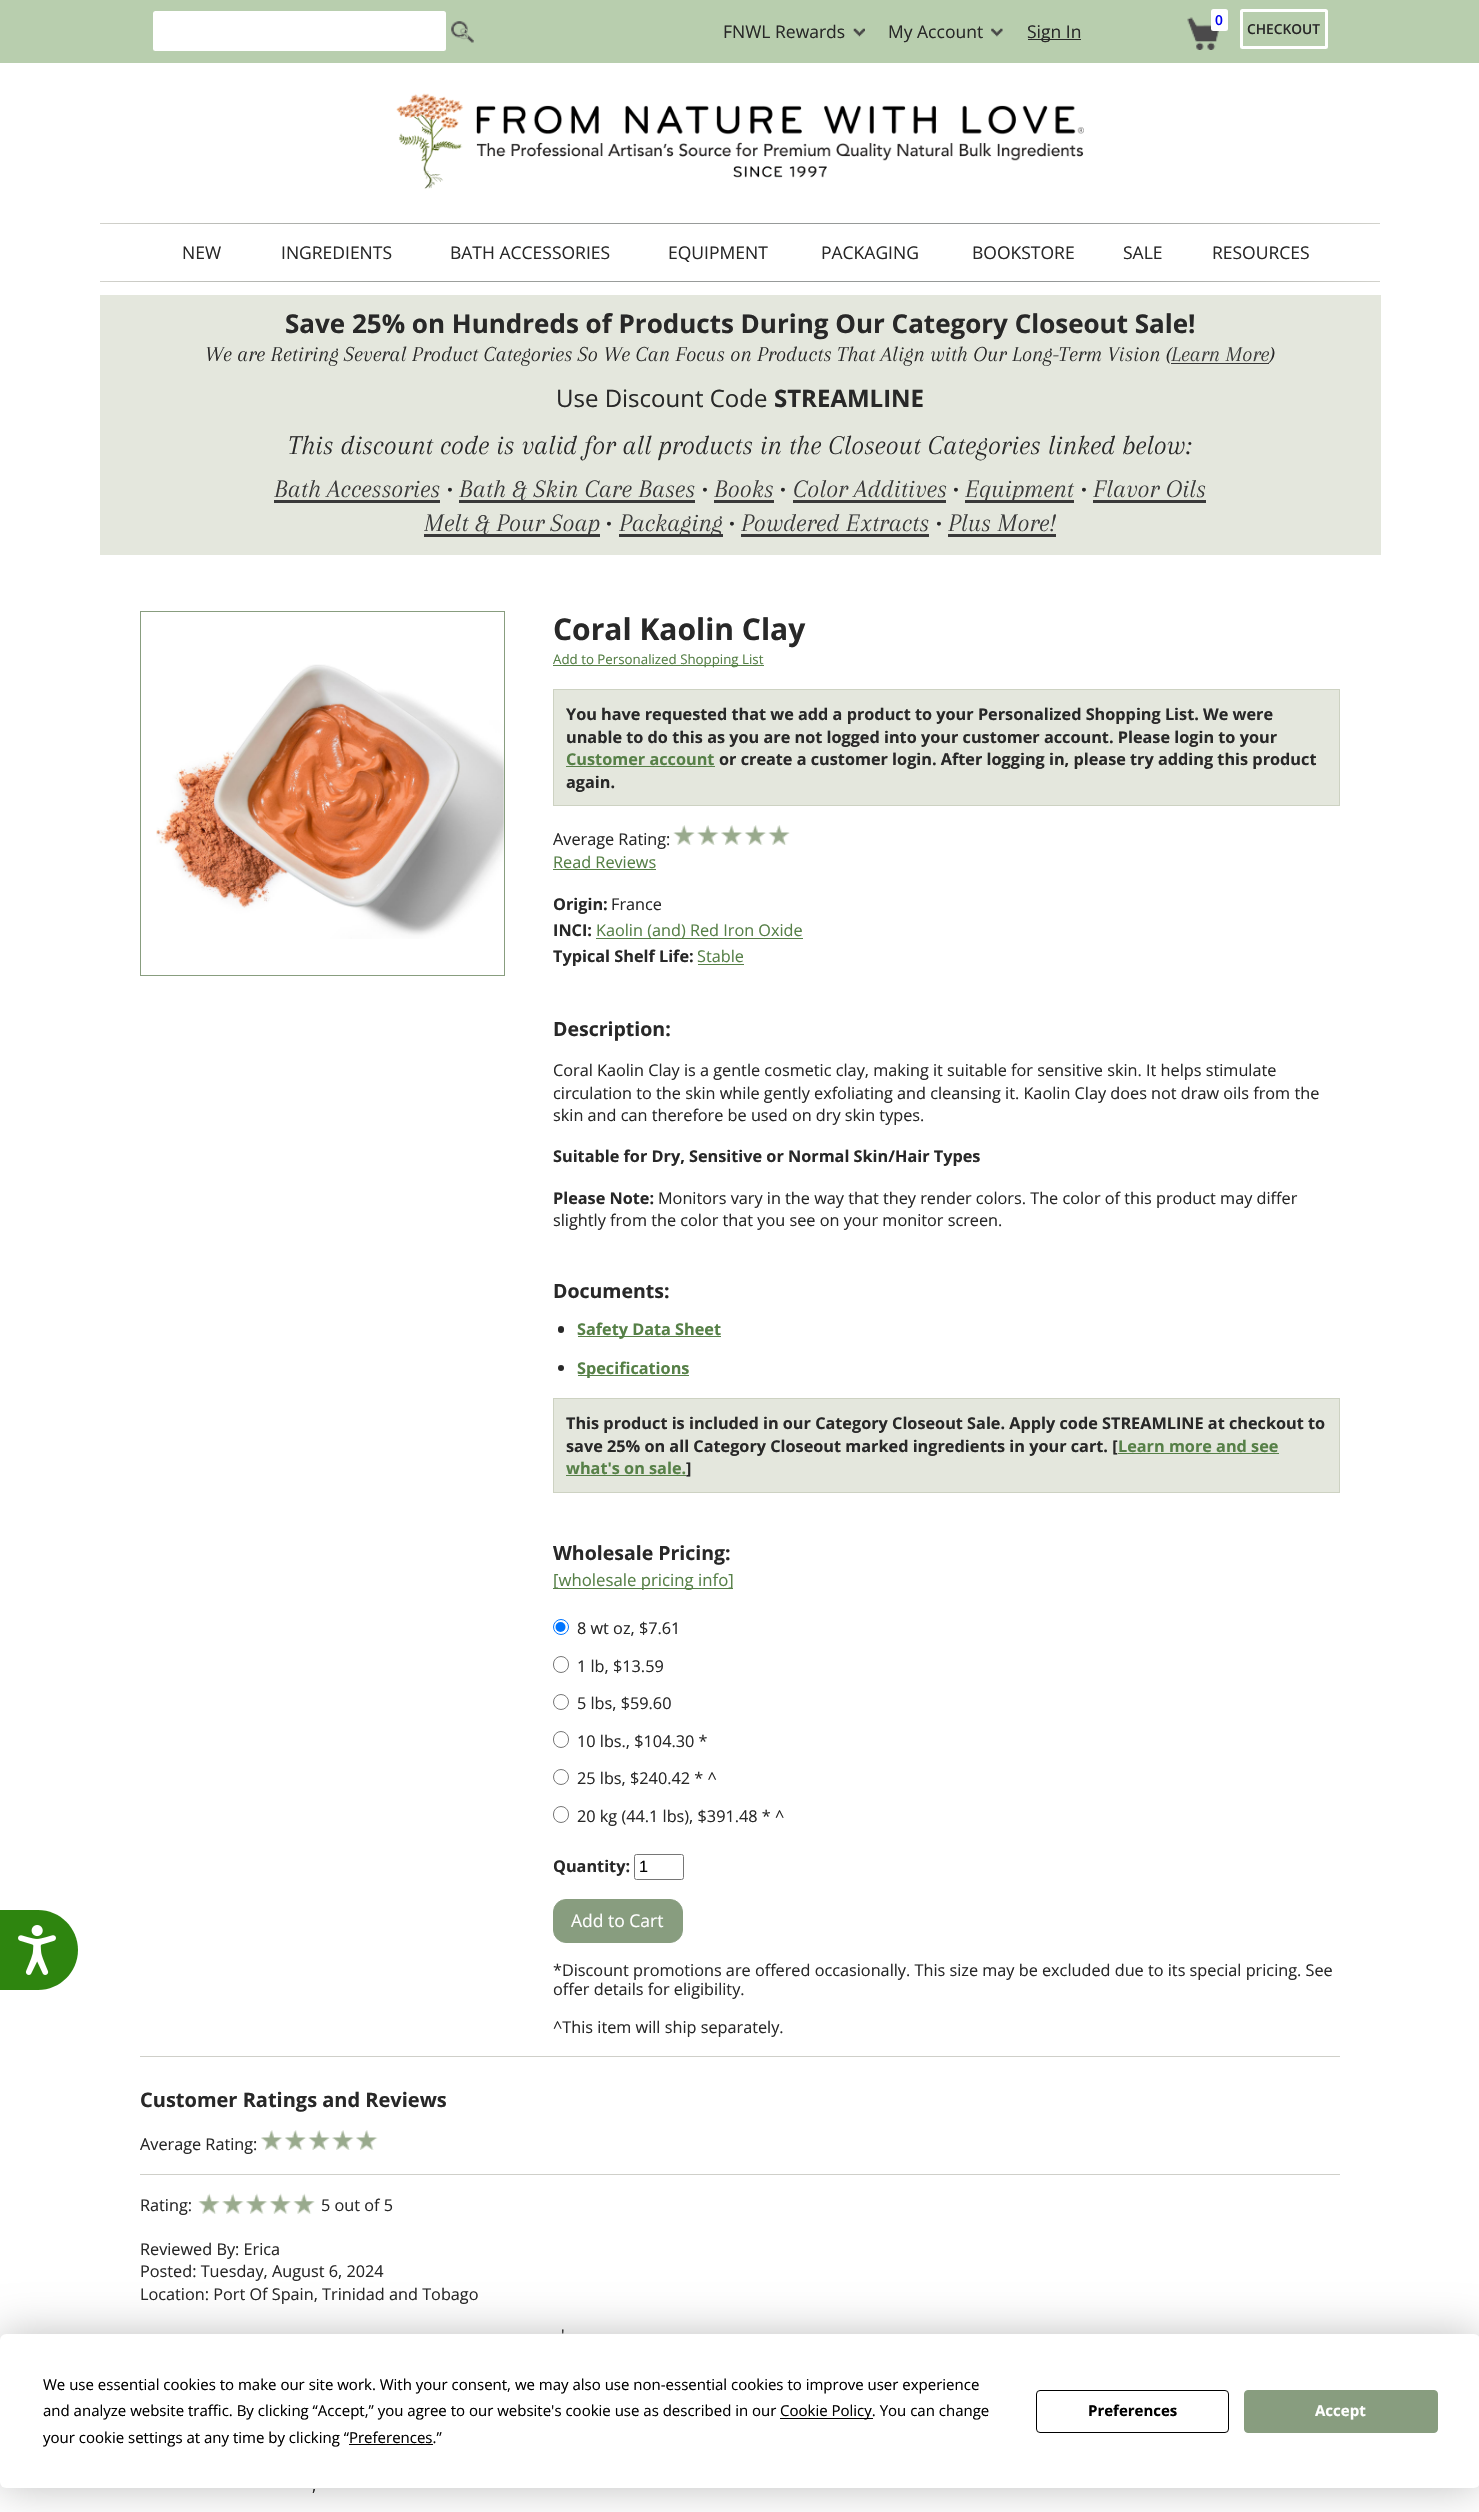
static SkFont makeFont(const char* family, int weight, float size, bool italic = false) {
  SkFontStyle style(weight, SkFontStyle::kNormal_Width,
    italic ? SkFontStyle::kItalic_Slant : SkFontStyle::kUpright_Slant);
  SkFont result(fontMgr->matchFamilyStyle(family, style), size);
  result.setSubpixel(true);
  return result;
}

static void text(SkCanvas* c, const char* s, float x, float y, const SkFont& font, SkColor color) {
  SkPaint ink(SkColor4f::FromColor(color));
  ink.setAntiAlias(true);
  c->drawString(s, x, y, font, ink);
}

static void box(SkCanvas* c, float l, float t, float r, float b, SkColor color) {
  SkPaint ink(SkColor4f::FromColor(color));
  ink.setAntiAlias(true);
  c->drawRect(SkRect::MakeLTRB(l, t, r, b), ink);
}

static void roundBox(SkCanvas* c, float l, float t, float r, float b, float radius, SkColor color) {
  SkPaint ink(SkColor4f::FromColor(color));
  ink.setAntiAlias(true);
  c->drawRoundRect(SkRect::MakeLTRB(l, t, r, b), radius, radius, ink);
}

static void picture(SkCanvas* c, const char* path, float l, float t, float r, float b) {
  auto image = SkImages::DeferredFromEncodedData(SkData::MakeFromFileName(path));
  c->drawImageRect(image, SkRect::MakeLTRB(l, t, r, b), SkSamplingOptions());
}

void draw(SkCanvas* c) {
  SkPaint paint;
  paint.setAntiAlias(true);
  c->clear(0xffffffff);
  paint.setColor(0xff2e850f);
  c->drawPath(SkPathBuilder().moveTo(0, 1910).lineTo(38, 1910).cubicTo(60, 1910, 78, 1928, 78, 1950).cubicTo(78, 1972, 60, 1990, 38, 1990).lineTo(0, 1990).close().detach(), paint);
  picture(c, "img_01.png", 18, 1925, 56, 1975);
  box(c, 0, 0, 1479, 63, 0xffb8ceae);
  roundBox(c, 153, 11, 446, 51, 2.5f, 0xffffffff);
  picture(c, "img_02.png", 451, 21, 474, 43);
  SkFont face1 = makeFont("Liberation Sans", 400, 20);
  text(c, "s", 459, 39, face1, 0xffa1b299);
  SkFont face2 = makeFont("Open Sans", 400, 17.5f);
  text(c, "FNWL Rewards", 723, 38, face2, 0xff282828);
  picture(c, "img_03.png", 853, 28, 865, 37);
  text(c, "My Account", 888, 38, face2, 0xff282828);
  picture(c, "img_04.png", 991, 28, 1003, 37);
  box(c, 1028, 39, 1081, 40, 0xff282828);
  text(c, "Sign In", 1027, 38, face2, 0xff282828);
  picture(c, "img_05.png", 1187, 17, 1219, 50);
  roundBox(c, 1211, 9, 1228, 31, 2.5f, 0xffffffff);
  SkFont face3 = makeFont("Open Sans", 600, 13.75f);
  text(c, "0", 1215, 25, face3, 0xff0000ee);
  paint.setStyle(SkPaint::kStroke_Style);
  paint.setStrokeWidth(3);
  paint.setColor(0xffffffff);
  c->drawRoundRect(SkRect::MakeLTRB(1241.5f, 10.5f, 1326.5f, 47.5f), 1, 1, paint);
  text(c, "CHECKOUT", 1247, 34, face3, 0xff282828);
  picture(c, "img_06.png", 396, 93, 1084, 189);
  paint.setStyle(SkPaint::kFill_Style);
  {
    const SkColor colors[] = {0xffd2d2cc, 0xff9da09d, 0xff939696, 0xffd2d2cc};
    const float stops[] = {0, 0.22f, 0.74f, 1};
    const SkPoint ends[] = {{100, 223}, {1380, 223}};
    paint.setShader(SkGradientShader::MakeLinear(ends, colors, stops, 4, SkTileMode::kClamp));
    paint.setAlpha(255);
  }
  c->drawRect(SkRect::MakeLTRB(100, 223, 1380, 224), paint);
  text(c, "NEW", 182, 259, face2, 0xff282828);
  text(c, "INGREDIENTS", 281, 259, face2, 0xff282828);
  text(c, "BATH ACCESSORIES", 450, 259, face2, 0xff282828);
  text(c, "EQUIPMENT", 668, 259, face2, 0xff282828);
  text(c, "PACKAGING", 821, 259, face2, 0xff282828);
  text(c, "BOOKSTORE", 972, 259, face2, 0xff282828);
  text(c, "SALE", 1123, 259, face2, 0xff282828);
  text(c, "RESOURCES", 1212, 259, face2, 0xff282828);
  {
    const SkColor colors[] = {0xffd2d2cc, 0xff9da09d, 0xff939696, 0xffd2d2cc};
    const float stops[] = {0, 0.22f, 0.74f, 1};
    const SkPoint ends[] = {{100, 282}, {1380, 282}};
    paint.setShader(SkGradientShader::MakeLinear(ends, colors, stops, 4, SkTileMode::kClamp));
    paint.setAlpha(255);
  }
  c->drawRect(SkRect::MakeLTRB(100, 281, 1380, 282), paint);
  box(c, 100, 295, 1381, 555, 0xffe4e7dd);
  SkFont face4 = makeFont("Open Sans", 700, 26);
  text(c, "Save 25% on Hundreds of Products During Our Category Closeout Sale!", 285, 333, face4, 0xff282828);
  SkFont face5 = makeFont("Arapey", 400, 22, true);
  text(c, "We are Retiring Several Product Categories So We Can Focus on Products That Align with Our Long-Term Vision (", 205, 361, face5, 0xff282828);
  text(c, "Learn More", 1171, 361, face5, 0xff393939);
  box(c, 1171, 363, 1269, 364, 0xff393939);
  text(c, ")", 1269, 361, face5, 0xff282828);
  SkFont face6 = makeFont("Open Sans", 400, 24);
  text(c, "Use Discount Code", 556, 407, face6, 0xff282828);
  SkFont face7 = makeFont("Open Sans", 700, 24);
  text(c, "STREAMLINE", 774, 407, face7, 0xff282828);
  SkFont face8 = makeFont("Arapey", 400, 28, true);
  text(c, "This discount code is valid for all products in the Closeout Categories linked below:", 288, 454, face8, 0xff282828);
  SkFont face9 = makeFont("Arapey", 400, 26, true);
  text(c, "Bath Accessories", 274, 497, face9, 0xff393939);
  box(c, 274, 500, 440, 503, 0xff393939);
  text(c, "•", 447, 497, face9, 0xff282828);
  box(c, 459, 500, 695, 503, 0xff393939);
  text(c, "Bath & Skin Care Bases", 459, 497, face9, 0xff393939);
  text(c, "•", 702, 497, face9, 0xff282828);
  text(c, "Books", 714, 497, face9, 0xff393939);
  box(c, 714, 500, 774, 503, 0xff393939);
  text(c, "•", 780, 497, face9, 0xff282828);
  text(c, "Color Additives", 793, 497, face9, 0xff393939);
  box(c, 793, 500, 946, 503, 0xff393939);
  text(c, "•", 953, 497, face9, 0xff282828);
  box(c, 965, 500, 1074, 503, 0xff393939);
  text(c, "Equipment", 965, 497, face9, 0xff393939);
  text(c, "•", 1081, 497, face9, 0xff282828);
  text(c, "Flavor Oils", 1093, 497, face9, 0xff393939);
  box(c, 1093, 500, 1206, 503, 0xff393939);
  box(c, 424, 534, 600, 537, 0xff393939);
  text(c, "Melt & Pour Soap", 424, 531, face9, 0xff393939);
  text(c, "•", 606, 531, face9, 0xff282828);
  box(c, 619, 534, 723, 537, 0xff393939);
  text(c, "Packaging", 619, 531, face9, 0xff393939);
  text(c, "•", 729, 531, face9, 0xff282828);
  text(c, "Powdered Extracts", 741, 531, face9, 0xff393939);
  box(c, 741, 534, 929, 537, 0xff393939);
  text(c, "•", 936, 531, face9, 0xff282828);
  text(c, "Plus More!", 948, 531, face9, 0xff393939);
  box(c, 948, 534, 1056, 537, 0xff393939);
  paint.setStyle(SkPaint::kStroke_Style);
  paint.setStrokeWidth(1);
  paint.setShader(nullptr);
  paint.setColor(0xff889d7f);
  c->drawRect(SkRect::MakeLTRB(140.5f, 611.5f, 504.5f, 975.5f), paint);
  picture(c, "img_07.png", 156, 664, 504, 939);
  SkFont face10 = makeFont("Open Sans", 700, 30);
  text(c, "Coral Kaolin Clay", 553, 640, face10, 0xff282828);
  box(c, 553, 665, 764, 666, 0xff568047);
  SkFont face11 = makeFont("Open Sans", 400, 13.3f);
  text(c, "Add to Personalized Shopping List", 553, 664, face11, 0xff568047);
  paint.setStyle(SkPaint::kFill_Style);
  paint.setColor(0xffe4e7dd);
  c->drawRect(SkRect::MakeLTRB(553.5f, 689.5f, 1339.5f, 805.5f), paint);
  paint.setStyle(SkPaint::kStroke_Style);
  paint.setColor(0xffcdd2c2);
  c->drawRect(SkRect::MakeLTRB(553.5f, 689.5f, 1339.5f, 805.5f), paint);
  SkFont face12 = makeFont("Open Sans", 700, 16.25f);
  text(c, "You have requested that we add a product to your Personalized Shopping List. We were", 566, 720, face12, 0xff282828);
  text(c, "unable to do this as you are not logged into your customer account. Please login to your", 566, 743, face12, 0xff282828);
  text(c, "Customer account", 566, 765, face12, 0xff568047);
  box(c, 566, 766, 715, 767, 0xff568047);
  text(c, "or create a customer login. After logging in, please try adding this product", 719, 765, face12, 0xff282828);
  text(c, "again.", 566, 788, face12, 0xff282828);
  SkFont face13 = makeFont("Open Sans", 400, 16.25f);
  text(c, "Average Rating:", 553, 845, face13, 0xff282828);
  picture(c, "img_08.png", 673, 825, 790, 845);
  text(c, "Read Reviews", 553, 868, face13, 0xff568047);
  box(c, 553, 869, 656, 870, 0xff568047);
  text(c, "Origin:", 553, 910, face12, 0xff282828);
  text(c, "France", 611, 910, face13, 0xff282828);
  text(c, "INCI:", 553, 936, face12, 0xff282828);
  box(c, 596, 938, 803, 939, 0xff568047);
  text(c, "Kaolin (and) Red Iron Oxide", 596, 936, face13, 0xff568047);
  text(c, "Typical Shelf Life:", 553, 962, face12, 0xff282828);
  text(c, "Stable", 697, 962, face13, 0xff568047);
  box(c, 698, 964, 744, 965, 0xff568047);
  SkFont face14 = makeFont("Open Sans", 700, 19.5f);
  text(c, "Description:", 553, 1036, face14, 0xff282828);
  text(c, "Coral Kaolin Clay is a gentle cosmetic clay, making it suitable for sensitive skin. It helps stimulate", 553, 1076, face13, 0xff282828);
  text(c, "circulation to the skin while gently exfoliating and cleansing it. Kaolin Clay does not draw oils from the", 553, 1099, face13, 0xff282828);
  text(c, "skin and can therefore be used on dry skin types.", 553, 1121, face13, 0xff282828);
  text(c, "Suitable for Dry, Sensitive or Normal Skin/Hair Types", 553, 1162, face12, 0xff282828);
  text(c, "Please Note:", 553, 1204, face12, 0xff282828);
  text(c, "Monitors vary in the way that they render colors. The color of this product may differ", 658, 1204, face13, 0xff282828);
  text(c, "slightly from the color that you see on your monitor screen.", 553, 1226, face13, 0xff282828);
  text(c, "Documents:", 553, 1298, face14, 0xff282828);
  roundBox(c, 558, 1326, 564, 1333, 3, 0xff282828);
  box(c, 578, 1336, 721, 1337, 0xff568047);
  text(c, "Safety Data Sheet", 577, 1335, face12, 0xff568047);
  paint.setStyle(SkPaint::kFill_Style);
  paint.setColor(0xff282828);
  c->drawCircle(561, 1368, 3, paint);
  box(c, 578, 1375, 689, 1376, 0xff568047);
  text(c, "Specifications", 577, 1374, face12, 0xff568047);
  paint.setColor(0xffe4e7dd);
  c->drawRect(SkRect::MakeLTRB(553.5f, 1398.5f, 1339.5f, 1492.5f), paint);
  paint.setStyle(SkPaint::kStroke_Style);
  paint.setColor(0xffcdd2c2);
  c->drawRect(SkRect::MakeLTRB(553.5f, 1398.5f, 1339.5f, 1492.5f), paint);
  text(c, "This product is included in our Category Closeout Sale. Apply code STREAMLINE at checkout to", 566, 1429, face12, 0xff282828);
  text(c, "save 25% on all Category Closeout marked ingredients in your cart. [", 566, 1452, face12, 0xff282828);
  text(c, "Learn more and see", 1118, 1452, face12, 0xff568047);
  box(c, 1118, 1453, 1279, 1454, 0xff568047);
  text(c, "what's on sale.", 566, 1474, face12, 0xff568047);
  box(c, 566, 1475, 686, 1476, 0xff568047);
  text(c, "]", 686, 1474, face12, 0xff282828);
  text(c, "Wholesale Pricing:", 553, 1560, face14, 0xff282828);
  box(c, 553, 1588, 733, 1589, 0xff568047);
  SkFont face15 = makeFont("Open Sans", 400, 16.75f);
  text(c, "[wholesale pricing info]", 553, 1586, face15, 0xff568047);
  paint.setColor(0xff0075ff);
  c->drawCircle(561, 1627, 7.5f, paint);
  paint.setStyle(SkPaint::kFill_Style);
  c->drawCircle(560.5f, 1627, 5, paint);
  text(c, "8 wt oz, $7.61", 577, 1634, face13, 0xff282828);
  paint.setStyle(SkPaint::kStroke_Style);
  paint.setColor(0xff767676);
  c->drawRoundRect(SkRect::MakeLTRB(553.5f, 1656.5f, 568.5f, 1672.5f), 7.5f, 7.5f, paint);
  text(c, "1 lb, $13.59", 577, 1672, face13, 0xff282828);
  c->drawCircle(561, 1702, 7.5f, paint);
  text(c, "5 lbs, $59.60", 577, 1709, face13, 0xff282828);
  c->drawRoundRect(SkRect::MakeLTRB(553.5f, 1731.5f, 568.5f, 1747.5f), 7.5f, 7.5f, paint);
  text(c, "10 lbs., $104.30 *", 577, 1747, face13, 0xff282828);
  c->drawCircle(561, 1777, 7.5f, paint);
  text(c, "25 lbs, $240.42 * ^", 577, 1784, face13, 0xff282828);
  c->drawRoundRect(SkRect::MakeLTRB(553.5f, 1806.5f, 568.5f, 1822.5f), 7.5f, 7.5f, paint);
  text(c, "20 kg (44.1 lbs), $391.48 * ^", 577, 1822, face13, 0xff282828);
  text(c, "Quantity:", 553, 1872, face12, 0xff282828);
  c->drawRoundRect(SkRect::MakeLTRB(634.5f, 1854.5f, 683.5f, 1879.5f), 2, 2, paint);
  SkFont face16 = makeFont("Liberation Sans", 400, 16.25f);
  text(c, "1", 639, 1872, face16, 0xff000000);
  paint.setStyle(SkPaint::kFill_Style);
  paint.setColor(0xff889d7f);
  c->drawRoundRect(SkRect::MakeLTRB(553.5f, 1899.5f, 682.5f, 1942.5f), 12.5f, 12.5f, paint);
  paint.setStyle(SkPaint::kStroke_Style);
  c->drawRoundRect(SkRect::MakeLTRB(553.5f, 1899.5f, 682.5f, 1942.5f), 12.5f, 12.5f, paint);
  text(c, "Add to Cart", 571, 1927, face2, 0xffffffff);
  text(c, "*Discount promotions are offered occasionally. This size may be excluded due to its special pricing. See", 553, 1976, face13, 0xff282828);
  text(c, "offer details for eligibility.", 553, 1995, face13, 0xff282828);
  text(c, "^This item will ship separately.", 553, 2033, face13, 0xff282828);
  box(c, 140, 2056, 1340, 2057, 0xffcfcfc9);
  SkFont face17 = makeFont("Open Sans", 700, 20);
  text(c, "Customer Ratings and Reviews", 140, 2107, face17, 0xff282828);
  text(c, "Average Rating:", 140, 2150, face13, 0xff282828);
  picture(c, "img_09.png", 261, 2130, 378, 2150);
  box(c, 140, 2174, 1340, 2175, 0xffcfcfc9);
  text(c, "Rating:", 140, 2211, face13, 0xff282828);
  picture(c, "img_10.png", 198, 2193, 315, 2214);
  text(c, "5 out of 5", 321, 2211, face13, 0xff282828);
  text(c, "Reviewed By: Erica", 140, 2255, face13, 0xff282828);
  text(c, "Posted: Tuesday, August 6, 2024", 140, 2277, face13, 0xff282828);
  text(c, "Location: Port Of Spain, Trinidad and Tobago", 140, 2300, face13, 0xff282828);
  text(c, "'", 561, 2341, face13, 0xff282828);
  text(c, ",", 312, 2491, face13, 0xff282828);
  paint.setStyle(SkPaint::kFill_Style);
  paint.setColor(0x40000000);
  paint.setMaskFilter(SkMaskFilter::MakeBlur(kNormal_SkBlurStyle, 22));
  c->drawRoundRect(SkRect::MakeLTRB(0, 2334, 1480, 2488), 6, 6, paint);
  paint.setMaskFilter(nullptr);
  roundBox(c, 0, 2334, 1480, 2488, 6, 0xffffffff);
  SkFont face18 = makeFont("Open Sans", 400, 15);
  text(c, "We use essential cookies to make our site work. With your consent, we may also use non-essential cookies to improve user experience", 43, 2390, face18, 0xff000000);
  text(c, "and analyze website traffic. By clicking “Accept,” you agree to our website's cookie use as described in our", 43, 2416, face18, 0xff000000);
  box(c, 780, 2418, 873, 2419, 0xff000000);
  text(c, "Cookie Policy. You can change", 780, 2416, face18, 0xff000000);
  text(c, "your cookie settings at any time by clicking “Preferences.”", 43, 2443, face18, 0xff000000);
  box(c, 349, 2444, 433, 2445, 0xff000000);
  paint.setStyle(SkPaint::kStroke_Style);
  paint.setColor(0xff000000);
  c->drawRoundRect(SkRect::MakeLTRB(1036.5f, 2390.5f, 1228.5f, 2432.5f), 3.5f, 3.5f, paint);
  SkFont face19 = makeFont("Open Sans", 700, 15);
  text(c, "Preferences", 1088, 2416, face19, 0xff000000);
  paint.setStyle(SkPaint::kFill_Style);
  paint.setColor(0xff889d7f);
  c->drawRoundRect(SkRect::MakeLTRB(1244.5f, 2390.5f, 1437.5f, 2432.5f), 3.5f, 3.5f, paint);
  paint.setStyle(SkPaint::kStroke_Style);
  c->drawRoundRect(SkRect::MakeLTRB(1244.5f, 2390.5f, 1437.5f, 2432.5f), 3.5f, 3.5f, paint);
  text(c, "Accept", 1315, 2416, face19, 0xffffffff);
}
